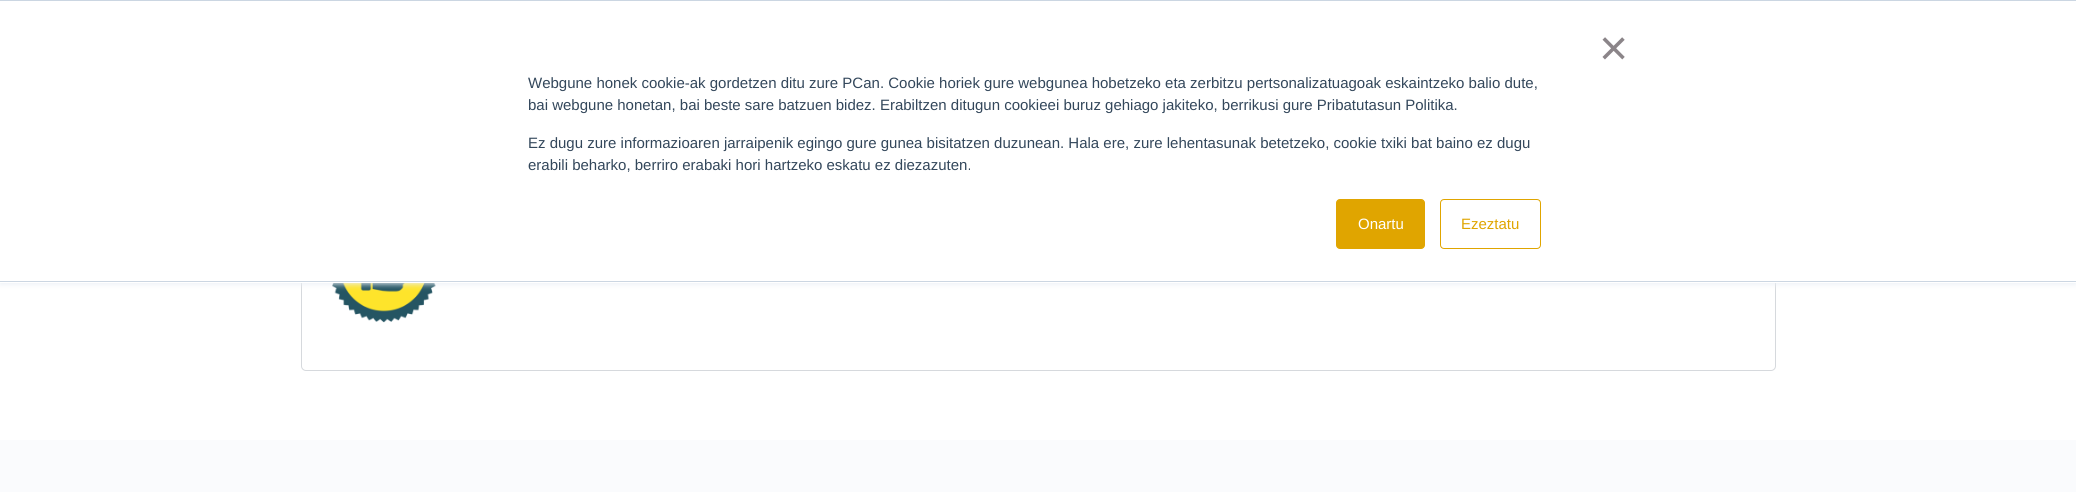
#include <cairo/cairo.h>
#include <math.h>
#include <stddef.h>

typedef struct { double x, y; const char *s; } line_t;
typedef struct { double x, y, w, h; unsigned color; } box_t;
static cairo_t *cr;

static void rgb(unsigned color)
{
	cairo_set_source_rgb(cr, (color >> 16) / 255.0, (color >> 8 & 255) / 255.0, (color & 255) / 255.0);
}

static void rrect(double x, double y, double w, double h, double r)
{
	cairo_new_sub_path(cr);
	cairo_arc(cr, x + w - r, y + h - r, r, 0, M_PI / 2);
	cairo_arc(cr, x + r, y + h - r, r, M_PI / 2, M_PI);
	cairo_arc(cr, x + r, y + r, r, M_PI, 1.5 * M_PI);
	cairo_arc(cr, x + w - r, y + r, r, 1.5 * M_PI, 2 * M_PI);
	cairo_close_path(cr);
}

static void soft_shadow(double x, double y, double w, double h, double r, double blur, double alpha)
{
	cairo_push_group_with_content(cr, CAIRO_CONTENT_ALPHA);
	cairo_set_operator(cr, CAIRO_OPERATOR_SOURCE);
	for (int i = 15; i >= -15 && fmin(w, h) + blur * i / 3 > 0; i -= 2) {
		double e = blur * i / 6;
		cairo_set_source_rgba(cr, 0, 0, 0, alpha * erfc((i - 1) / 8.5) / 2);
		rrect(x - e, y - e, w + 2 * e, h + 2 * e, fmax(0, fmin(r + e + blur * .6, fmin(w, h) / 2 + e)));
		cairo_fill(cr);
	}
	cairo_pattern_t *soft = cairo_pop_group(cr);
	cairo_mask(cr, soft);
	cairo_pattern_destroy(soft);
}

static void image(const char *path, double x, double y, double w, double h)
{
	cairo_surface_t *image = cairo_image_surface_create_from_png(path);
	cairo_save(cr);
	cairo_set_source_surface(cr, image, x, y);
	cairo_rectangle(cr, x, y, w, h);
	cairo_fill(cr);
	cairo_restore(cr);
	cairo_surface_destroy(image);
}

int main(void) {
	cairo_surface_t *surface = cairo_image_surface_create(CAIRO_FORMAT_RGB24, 2076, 492);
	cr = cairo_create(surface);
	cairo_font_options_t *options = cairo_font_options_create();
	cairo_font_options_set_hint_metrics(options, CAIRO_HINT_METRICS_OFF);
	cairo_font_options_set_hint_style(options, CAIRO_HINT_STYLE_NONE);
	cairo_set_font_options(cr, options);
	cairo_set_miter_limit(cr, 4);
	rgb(0xffffff);
	cairo_paint(cr);
	rrect(301.5, 113.5, 1474, 257, 4.5);
	rgb(0xd6d9dd);
	cairo_set_line_width(cr, 1);
	cairo_stroke(cr);
	image("img/1.png", 332, 283, 104, 40);
	rgb(0xeaf0f6);
	soft_shadow(0, 1, 2076, 283, 0, 3, 1);
	{
		static const box_t items[] = {
			{0, 1, 2076, 282, 0xffffff},
			{0, 0, 2076, 1, 0xcbd6e2},
			{0, 281, 2076, 1, 0xcbd6e2},
		};
		for (size_t i = 0; i < sizeof items / sizeof *items; i++) {
			rgb(items[i].color);
			cairo_rectangle(cr, items[i].x, items[i].y, items[i].w, items[i].h);
			cairo_fill(cr);
		}
	}
	rgb(0xe0a500);
	rrect(1336.5, 199.5, 88, 49, 3.5);
	cairo_fill_preserve(cr);
	cairo_stroke(cr);
	rrect(1440.5, 199.5, 100, 49, 3.5);
	cairo_stroke(cr);
	rgb(0xfafbfd);
	cairo_rectangle(cr, 0, 440, 2076, 52);
	cairo_fill(cr);
	cairo_select_font_face(cr, "Liberation Sans", CAIRO_FONT_SLANT_NORMAL, CAIRO_FONT_WEIGHT_NORMAL);
	cairo_set_font_size(cr, 50);
	rgb(0x8b8589);
	cairo_move_to(cr, 1599, 65);
	cairo_show_text(cr, "×");
	cairo_set_font_size(cr, 15);
	rgb(0x33475b);
	{
		static const line_t items[] = {
			{528, 88, "Webgune honek cookie-ak gordetzen ditu zure PCan. Cookie horiek gure webgunea hobetzeko eta zerbitzu pertsonalizatuagoak eskaintzeko balio dute,"},
			{528, 110, "bai webgune honetan, bai beste sare batzuen bidez. Erabiltzen ditugun cookieei buruz gehiago jakiteko, berrikusi gure Pribatutasun Politika."},
			{528, 148, "Ez dugu zure informazioaren jarraipenik egingo gure gunea bisitatzen duzunean. Hala ere, zure lehentasunak betetzeko, cookie txiki bat baino ez dugu"},
			{528, 170, "erabili beharko, berriro erabaki hori hartzeko eskatu ez diezazuten."},
		};
		for (size_t i = 0; i < sizeof items / sizeof *items; i++) {
			cairo_move_to(cr, items[i].x, items[i].y);
			cairo_show_text(cr, items[i].s);
		}
	}
	rgb(0xffffff);
	cairo_move_to(cr, 1358, 229);
	cairo_show_text(cr, "Onartu");
	rgb(0xe0a500);
	cairo_move_to(cr, 1461, 229);
	cairo_show_text(cr, "Ezeztatu");
	cairo_surface_write_to_png(surface, "page.png");
	cairo_font_options_destroy(options);
	cairo_destroy(cr);
	cairo_surface_destroy(surface);
	return 0;
}
